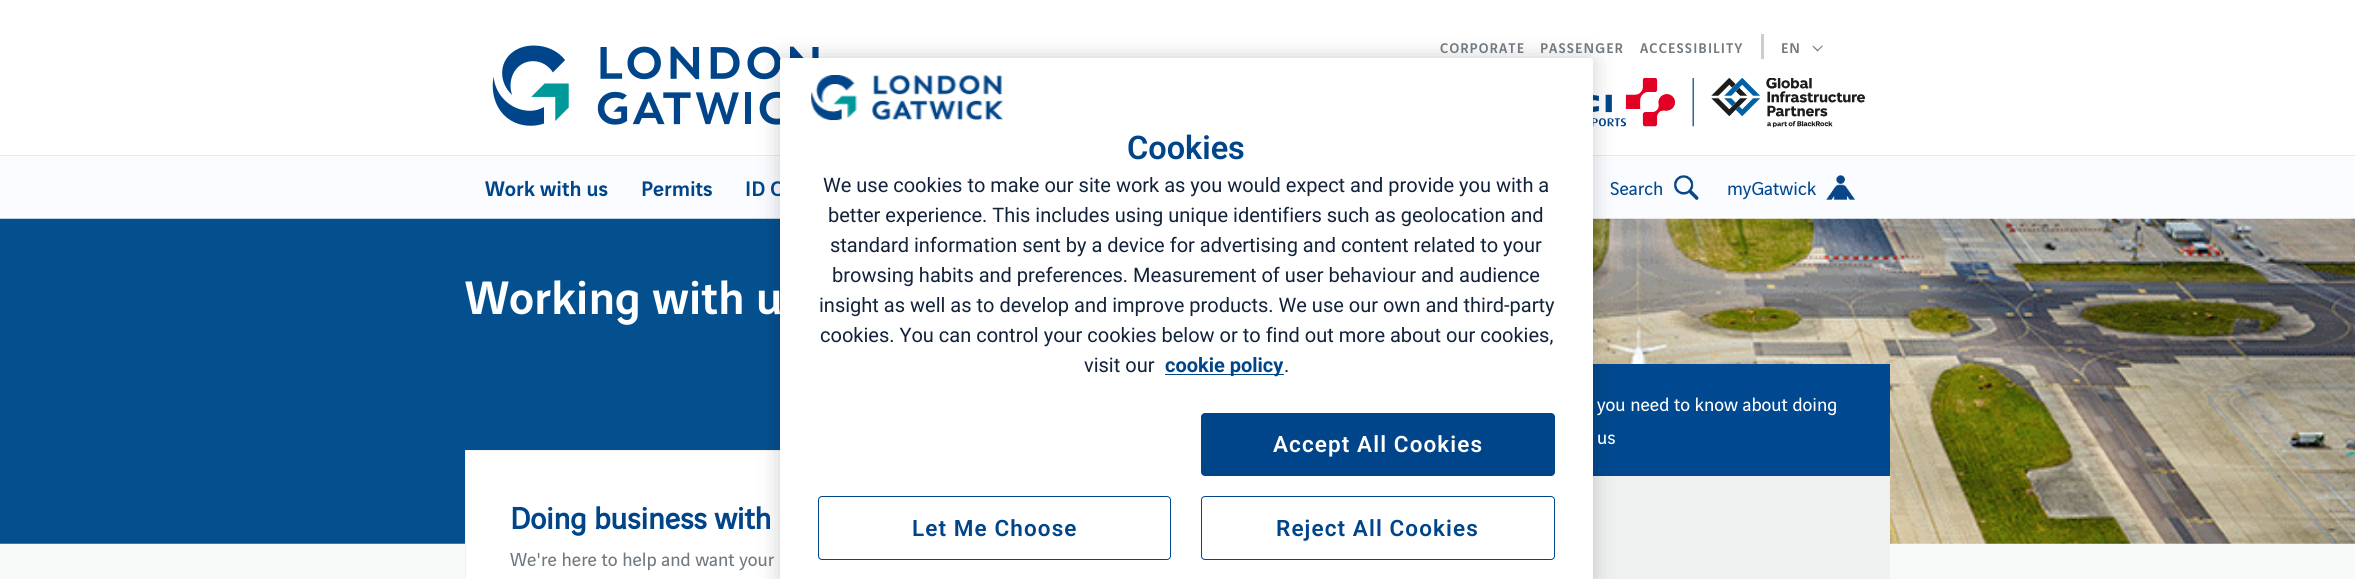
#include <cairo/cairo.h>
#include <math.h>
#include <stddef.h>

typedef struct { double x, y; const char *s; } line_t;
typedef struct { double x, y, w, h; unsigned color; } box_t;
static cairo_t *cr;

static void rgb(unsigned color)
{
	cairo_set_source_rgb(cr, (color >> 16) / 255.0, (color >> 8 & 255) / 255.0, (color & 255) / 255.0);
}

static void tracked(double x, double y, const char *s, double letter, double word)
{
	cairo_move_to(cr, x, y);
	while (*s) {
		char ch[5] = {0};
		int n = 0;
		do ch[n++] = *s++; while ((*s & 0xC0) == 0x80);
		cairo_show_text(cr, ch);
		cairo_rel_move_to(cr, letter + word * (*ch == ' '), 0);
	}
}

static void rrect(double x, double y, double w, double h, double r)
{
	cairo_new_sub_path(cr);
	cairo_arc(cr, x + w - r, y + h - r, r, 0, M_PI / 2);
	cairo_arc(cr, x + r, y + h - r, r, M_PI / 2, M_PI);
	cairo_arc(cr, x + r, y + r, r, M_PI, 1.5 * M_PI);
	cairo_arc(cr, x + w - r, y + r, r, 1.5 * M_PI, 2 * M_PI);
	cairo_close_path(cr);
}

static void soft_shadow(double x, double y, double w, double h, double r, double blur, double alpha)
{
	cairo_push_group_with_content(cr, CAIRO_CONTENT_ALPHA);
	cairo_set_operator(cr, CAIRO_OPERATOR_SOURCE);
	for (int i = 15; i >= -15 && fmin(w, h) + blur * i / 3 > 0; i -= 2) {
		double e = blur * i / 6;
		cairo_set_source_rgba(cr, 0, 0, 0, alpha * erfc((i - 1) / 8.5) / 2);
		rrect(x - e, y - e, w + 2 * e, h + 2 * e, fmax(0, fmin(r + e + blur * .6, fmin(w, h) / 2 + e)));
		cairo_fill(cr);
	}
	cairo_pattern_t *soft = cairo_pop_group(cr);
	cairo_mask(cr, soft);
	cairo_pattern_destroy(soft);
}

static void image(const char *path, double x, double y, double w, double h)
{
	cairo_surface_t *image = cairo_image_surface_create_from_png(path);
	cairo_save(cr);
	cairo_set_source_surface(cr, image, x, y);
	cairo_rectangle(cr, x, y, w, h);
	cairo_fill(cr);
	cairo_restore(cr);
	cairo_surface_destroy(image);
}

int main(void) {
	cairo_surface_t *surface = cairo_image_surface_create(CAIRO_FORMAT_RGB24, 2355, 579);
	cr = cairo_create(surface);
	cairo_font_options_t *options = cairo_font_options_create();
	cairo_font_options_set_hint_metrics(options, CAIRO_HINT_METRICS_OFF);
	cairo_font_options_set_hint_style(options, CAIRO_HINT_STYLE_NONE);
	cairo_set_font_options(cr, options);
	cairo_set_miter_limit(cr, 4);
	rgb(0xffffff);
	cairo_paint(cr);
	image("img/1.png", 492, 45, 327, 81);
	rgb(0xcccccc);
	cairo_rectangle(cr, 1761, 34, 3, 25);
	cairo_fill(cr);
	rgb(0x717980);
	cairo_new_path(cr);
	cairo_move_to(cr, 1823, 46);
	cairo_line_to(cr, 1817.5, 51.5);
	cairo_line_to(cr, 1817, 50.5);
	cairo_line_to(cr, 1822, 45.5);
	cairo_close_path(cr);
	cairo_fill(cr);
	cairo_new_path(cr);
	cairo_move_to(cr, 1818.5, 50.5);
	cairo_line_to(cr, 1817.5, 51.5);
	cairo_line_to(cr, 1812.5, 46.5);
	cairo_line_to(cr, 1813, 45.5);
	cairo_close_path(cr);
	cairo_fill(cr);
	image("img/2.png", 1593, 78, 272, 50);
	rgb(0xfafcff);
	cairo_rectangle(cr, 0, 156, 2355, 63);
	cairo_fill(cr);
	rgb(0xeaeaea);
	cairo_rectangle(cr, 0, 155, 2355, 1);
	cairo_fill(cr);
	image("img/3.png", 1674, 175, 25, 25);
	image("img/4.png", 1826, 175, 29, 25);
	rgb(0xf8fafa);
	cairo_rectangle(cr, 0, 543, 2355, 36);
	cairo_fill(cr);
	image("img/5.png", 0, 218, 2355, 326);
	{
		static const box_t items[] = {
			{1593, 364, 297, 112, 0x004990},
			{466, 451, 314, 128, 0xffffff},
			{1593, 476, 297, 103, 0xeff1f1},
		};
		for (size_t i = 0; i < sizeof items / sizeof *items; i++) {
			rgb(items[i].color);
			cairo_rectangle(cr, items[i].x, items[i].y, items[i].w, items[i].h);
			cairo_fill(cr);
		}
	}
	cairo_rectangle(cr, 465.5, 450.5, 994, 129);
	rgb(0xf1f1f1);
	cairo_set_line_width(cr, 1);
	cairo_stroke(cr);
	rgb(0x000000);
	soft_shadow(780, 58, 813, 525, 3, 11, 0.2);
	cairo_select_font_face(cr, "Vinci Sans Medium", CAIRO_FONT_SLANT_NORMAL, CAIRO_FONT_WEIGHT_NORMAL);
	cairo_set_font_size(cr, 15);
	rgb(0x717980);
	{
		static const line_t items[] = {
			{1440, 53, "CORPORATE"},
			{1540, 53, "PASSENGER"},
			{1640, 53, "ACCESSIBILITY"},
			{1781, 53, "EN"},
		};
		for (size_t i = 0; i < sizeof items / sizeof *items; i++) {
			tracked(items[i].x, items[i].y, items[i].s, 1.1, 0);
		}
	}
	cairo_set_font_size(cr, 22.5);
	rgb(0x004489);
	{
		static const line_t items[] = {
			{485, 196, "Work with us"},
			{641, 196, "Permits"},
			{745, 196, "ID C"},
		};
		for (size_t i = 0; i < sizeof items / sizeof *items; i++) {
			cairo_move_to(cr, items[i].x, items[i].y);
			cairo_show_text(cr, items[i].s);
		}
	}
	cairo_select_font_face(cr, "Vinci Sans", CAIRO_FONT_SLANT_NORMAL, CAIRO_FONT_WEIGHT_NORMAL);
	cairo_set_font_size(cr, 20);
	rgb(0x004990);
	cairo_move_to(cr, 1610, 195);
	cairo_show_text(cr, "Search");
	cairo_move_to(cr, 1727, 195);
	cairo_show_text(cr, "myGatwick");
	cairo_select_font_face(cr, "Vinci Sans Medium", CAIRO_FONT_SLANT_NORMAL, CAIRO_FONT_WEIGHT_NORMAL);
	cairo_set_font_size(cr, 50);
	rgb(0xffffff);
	cairo_move_to(cr, 465, 314);
	cairo_show_text(cr, "Working with u");
	cairo_select_font_face(cr, "Vinci Sans", CAIRO_FONT_SLANT_NORMAL, CAIRO_FONT_WEIGHT_NORMAL);
	cairo_set_font_size(cr, 20);
	cairo_move_to(cr, 1597, 411);
	cairo_show_text(cr, "you need to know about doing");
	cairo_move_to(cr, 1597, 444);
	cairo_show_text(cr, "us");
	cairo_select_font_face(cr, "Vinci Sans", CAIRO_FONT_SLANT_NORMAL, CAIRO_FONT_WEIGHT_BOLD);
	cairo_set_font_size(cr, 32.5);
	rgb(0x004489);
	cairo_move_to(cr, 510, 529);
	cairo_show_text(cr, "Doing business with");
	cairo_select_font_face(cr, "Vinci Sans", CAIRO_FONT_SLANT_NORMAL, CAIRO_FONT_WEIGHT_NORMAL);
	cairo_set_font_size(cr, 20);
	rgb(0x717980);
	cairo_move_to(cr, 510, 566);
	cairo_show_text(cr, "We're here to help and want your");
	rgb(0xffffff);
	rrect(780, 58, 813, 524, 3);
	cairo_fill(cr);
	image("img/6.png", 811, 75, 192, 46);
	cairo_select_font_face(cr, "Roboto SemiBold", CAIRO_FONT_SLANT_NORMAL, CAIRO_FONT_WEIGHT_NORMAL);
	cairo_set_font_size(cr, 32.5);
	rgb(0x004489);
	cairo_move_to(cr, 1127, 159);
	cairo_show_text(cr, "Cookies");
	cairo_select_font_face(cr, "Roboto", CAIRO_FONT_SLANT_NORMAL, CAIRO_FONT_WEIGHT_NORMAL);
	cairo_set_font_size(cr, 20);
	rgb(0x11223a);
	{
		static const line_t items[] = {
			{823, 192, "We use cookies to make our site work as you would expect and provide you with a"},
			{828, 222, "better experience. This includes using unique identifiers such as geolocation and"},
			{830, 252, "standard information sent by a device for advertising and content related to your"},
			{832, 282, "browsing habits and preferences. Measurement of user behaviour and audience"},
			{819, 312, "insight as well as to develop and improve products. We use our own and third-party"},
			{820, 342, "cookies. You can control your cookies below or to find out more about our cookies,"},
			{1084, 372, "visit our"},
		};
		for (size_t i = 0; i < sizeof items / sizeof *items; i++) {
			cairo_move_to(cr, items[i].x, items[i].y);
			cairo_show_text(cr, items[i].s);
		}
	}
	rgb(0x004489);
	cairo_rectangle(cr, 1165, 374, 119, 1);
	cairo_fill(cr);
	cairo_select_font_face(cr, "Roboto", CAIRO_FONT_SLANT_NORMAL, CAIRO_FONT_WEIGHT_BOLD);
	cairo_move_to(cr, 1165, 372);
	cairo_show_text(cr, "cookie policy");
	cairo_select_font_face(cr, "Roboto", CAIRO_FONT_SLANT_NORMAL, CAIRO_FONT_WEIGHT_NORMAL);
	rgb(0x11223a);
	cairo_move_to(cr, 1284, 372);
	cairo_show_text(cr, ".");
	rrect(818.5, 496.5, 352, 63, 3.5);
	rgb(0x004489);
	cairo_stroke(cr);
	cairo_select_font_face(cr, "Roboto SemiBold", CAIRO_FONT_SLANT_NORMAL, CAIRO_FONT_WEIGHT_NORMAL);
	cairo_set_font_size(cr, 22.5);
	tracked(912, 536, "Let Me Choose", 1.1, 0);
	rrect(1201.5, 413.5, 353, 62, 3.5);
	cairo_fill_preserve(cr);
	cairo_stroke(cr);
	rgb(0xffffff);
	tracked(1273, 452, "Accept All Cookies", 1.1, 0);
	rrect(1201.5, 496.5, 353, 63, 3.5);
	rgb(0x004489);
	cairo_stroke(cr);
	tracked(1276, 536, "Reject All Cookies", 1.1, 0);
	cairo_surface_write_to_png(surface, "page.png");
	cairo_font_options_destroy(options);
	cairo_destroy(cr);
	cairo_surface_destroy(surface);
	return 0;
}
